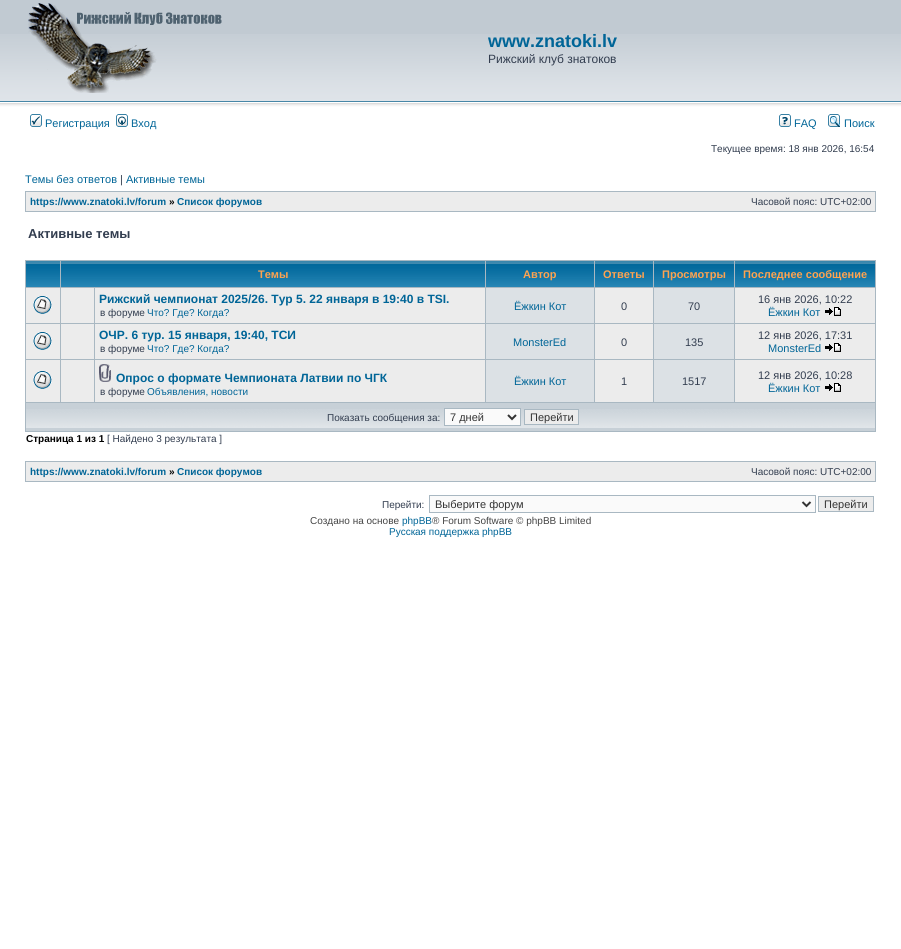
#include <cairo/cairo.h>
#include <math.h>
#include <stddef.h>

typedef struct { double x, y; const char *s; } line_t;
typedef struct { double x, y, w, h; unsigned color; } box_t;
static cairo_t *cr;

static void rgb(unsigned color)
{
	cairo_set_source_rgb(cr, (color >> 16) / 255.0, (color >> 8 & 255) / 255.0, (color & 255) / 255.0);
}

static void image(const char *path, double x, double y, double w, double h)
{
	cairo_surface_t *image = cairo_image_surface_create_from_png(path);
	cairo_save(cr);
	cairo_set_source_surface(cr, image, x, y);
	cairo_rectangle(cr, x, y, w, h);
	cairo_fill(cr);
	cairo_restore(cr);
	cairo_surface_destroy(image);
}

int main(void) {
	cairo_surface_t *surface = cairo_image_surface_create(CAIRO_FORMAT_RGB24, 901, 949);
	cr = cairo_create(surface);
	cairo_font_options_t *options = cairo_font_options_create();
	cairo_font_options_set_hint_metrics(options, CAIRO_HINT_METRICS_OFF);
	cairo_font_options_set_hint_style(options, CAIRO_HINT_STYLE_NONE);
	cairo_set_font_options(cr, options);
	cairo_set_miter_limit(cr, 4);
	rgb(0xffffff);
	cairo_paint(cr);
	rgb(0xc1cad2);
	cairo_rectangle(cr, 0, 0, 901, 34);
	cairo_fill(cr);
	image("img/1.png", 0, 34, 901, 78);
	image("img/2.png", 28, 3, 194, 90);
	image("img/3.png", 30, 114, 12, 13);
	image("img/4.png", 116, 114, 12, 13);
	image("img/5.png", 779, 114, 12, 13);
	image("img/6.png", 828, 114, 12, 13);
	{
		static const box_t items[] = {
			{25, 191, 851, 21, 0xa9b8c2},
			{26, 192, 849, 19, 0xececec},
			{25, 260, 851, 172, 0xa9b8c2},
		};
		for (size_t i = 0; i < sizeof items / sizeof *items; i++) {
			rgb(items[i].color);
			cairo_rectangle(cr, items[i].x, items[i].y, items[i].w, items[i].h);
			cairo_fill(cr);
		}
	}
	image("img/7.png", 26, 261, 34, 26);
	image("img/8.png", 61, 261, 424, 26);
	image("img/9.png", 486, 261, 108, 26);
	image("img/10.png", 595, 261, 58, 26);
	image("img/11.png", 654, 261, 80, 26);
	image("img/12.png", 735, 261, 140, 26);
	rgb(0xececec);
	cairo_rectangle(cr, 26, 288, 34, 35);
	cairo_fill(cr);
	image("img/13.png", 33, 296, 19, 18);
	{
		static const box_t items[] = {
			{61, 288, 33, 35, 0xececec},
			{95, 288, 390, 35, 0xececec},
			{486, 288, 108, 35, 0xdce1e5},
			{595, 288, 58, 35, 0xececec},
			{654, 288, 80, 35, 0xdce1e5},
			{735, 288, 140, 35, 0xececec},
		};
		for (size_t i = 0; i < sizeof items / sizeof *items; i++) {
			rgb(items[i].color);
			cairo_rectangle(cr, items[i].x, items[i].y, items[i].w, items[i].h);
			cairo_fill(cr);
		}
	}
	image("img/14.png", 825, 307, 16, 9);
	cairo_rectangle(cr, 26, 324, 34, 35);
	cairo_fill(cr);
	image("img/13.png", 33, 332, 19, 18);
	{
		static const box_t items[] = {
			{61, 324, 33, 35, 0xececec},
			{95, 324, 390, 35, 0xececec},
			{486, 324, 108, 35, 0xdce1e5},
			{595, 324, 58, 35, 0xececec},
			{654, 324, 80, 35, 0xdce1e5},
			{735, 324, 140, 35, 0xececec},
		};
		for (size_t i = 0; i < sizeof items / sizeof *items; i++) {
			rgb(items[i].color);
			cairo_rectangle(cr, items[i].x, items[i].y, items[i].w, items[i].h);
			cairo_fill(cr);
		}
	}
	image("img/14.png", 825, 343, 16, 9);
	cairo_rectangle(cr, 26, 360, 34, 42);
	cairo_fill(cr);
	image("img/13.png", 33, 371, 19, 18);
	cairo_rectangle(cr, 61, 360, 33, 42);
	cairo_fill(cr);
	cairo_rectangle(cr, 95, 360, 390, 42);
	cairo_fill(cr);
	image("img/15.png", 99, 364, 12, 18);
	{
		static const box_t items[] = {
			{486, 360, 108, 42, 0xdce1e5},
			{595, 360, 58, 42, 0xececec},
			{654, 360, 80, 42, 0xdce1e5},
			{735, 360, 140, 42, 0xececec},
		};
		for (size_t i = 0; i < sizeof items / sizeof *items; i++) {
			rgb(items[i].color);
			cairo_rectangle(cr, items[i].x, items[i].y, items[i].w, items[i].h);
			cairo_fill(cr);
		}
	}
	image("img/14.png", 825, 383, 16, 9);
	rgb(0xc7d0d7);
	cairo_rectangle(cr, 26, 403, 849, 28);
	cairo_fill(cr);
	image("img/16.png", 26, 409, 849, 19);
	rgb(0xfafafa);
	cairo_rectangle(cr, 444.5, 408.5, 76, 17);
	cairo_fill_preserve(cr);
	rgb(0xa9b8c2);
	cairo_set_line_width(cr, 1);
	cairo_stroke(cr);
	cairo_new_path(cr);
	cairo_move_to(cr, 508, 415);
	cairo_line_to(cr, 512, 419);
	cairo_line_to(cr, 516, 415);
	rgb(0x333333);
	cairo_set_line_width(cr, 2);
	cairo_stroke(cr);
	rgb(0xececec);
	cairo_rectangle(cr, 524.5, 409.5, 54, 15);
	cairo_fill_preserve(cr);
	rgb(0xa9b8c2);
	cairo_set_line_width(cr, 1);
	cairo_stroke(cr);
	cairo_rectangle(cr, 25, 461, 851, 21);
	cairo_fill(cr);
	rgb(0xececec);
	cairo_rectangle(cr, 26, 462, 849, 19);
	cairo_fill(cr);
	rgb(0xfafafa);
	cairo_rectangle(cr, 429.5, 495.5, 386, 17);
	cairo_fill_preserve(cr);
	rgb(0xa9b8c2);
	cairo_stroke(cr);
	cairo_new_path(cr);
	cairo_move_to(cr, 802.5, 502);
	cairo_line_to(cr, 806.5, 506);
	cairo_line_to(cr, 810.5, 502);
	rgb(0x333333);
	cairo_set_line_width(cr, 2);
	cairo_stroke(cr);
	rgb(0xececec);
	cairo_rectangle(cr, 818.5, 496.5, 55, 15);
	cairo_fill_preserve(cr);
	rgb(0xa9b8c2);
	cairo_set_line_width(cr, 1);
	cairo_stroke(cr);
	cairo_select_font_face(cr, "Liberation Sans", CAIRO_FONT_SLANT_NORMAL, CAIRO_FONT_WEIGHT_BOLD);
	cairo_set_font_size(cr, 18);
	rgb(0x006597);
	cairo_move_to(cr, 488, 47);
	cairo_show_text(cr, "www.znatoki.lv");
	cairo_select_font_face(cr, "Liberation Sans", CAIRO_FONT_SLANT_NORMAL, CAIRO_FONT_WEIGHT_NORMAL);
	cairo_set_font_size(cr, 12);
	rgb(0x323d4f);
	cairo_move_to(cr, 488, 63);
	cairo_show_text(cr, "Рижский клуб знатоков");
	cairo_set_font_size(cr, 11);
	rgb(0x006597);
	{
		static const line_t items[] = {
			{45, 127, "Регистрация"},
			{131, 127, "Вход"},
			{794, 127, "FAQ"},
			{844, 127, "Поиск"},
		};
		for (size_t i = 0; i < sizeof items / sizeof *items; i++) {
			cairo_move_to(cr, items[i].x, items[i].y);
			cairo_show_text(cr, items[i].s);
		}
	}
	cairo_set_font_size(cr, 10);
	rgb(0x323d4f);
	cairo_move_to(cr, 711, 152);
	cairo_show_text(cr, "Текущее время: 18 янв 2026, 16:54");
	cairo_set_font_size(cr, 11);
	rgb(0x006597);
	cairo_move_to(cr, 25, 183);
	cairo_show_text(cr, "Темы без ответов");
	rgb(0x323d4f);
	cairo_move_to(cr, 120, 183);
	cairo_show_text(cr, "|");
	rgb(0x006597);
	cairo_move_to(cr, 126, 183);
	cairo_show_text(cr, "Активные темы");
	cairo_select_font_face(cr, "Liberation Sans", CAIRO_FONT_SLANT_NORMAL, CAIRO_FONT_WEIGHT_BOLD);
	cairo_set_font_size(cr, 10);
	cairo_move_to(cr, 30, 205);
	cairo_show_text(cr, "https://www.znatoki.lv/forum");
	rgb(0x000000);
	cairo_move_to(cr, 169, 205);
	cairo_show_text(cr, "»");
	rgb(0x006597);
	cairo_move_to(cr, 177, 205);
	cairo_show_text(cr, "Список форумов");
	cairo_select_font_face(cr, "Liberation Sans", CAIRO_FONT_SLANT_NORMAL, CAIRO_FONT_WEIGHT_NORMAL);
	rgb(0x323d4f);
	cairo_move_to(cr, 751, 205);
	cairo_show_text(cr, "Часовой пояс: UTC+02:00");
	cairo_select_font_face(cr, "Liberation Sans", CAIRO_FONT_SLANT_NORMAL, CAIRO_FONT_WEIGHT_BOLD);
	cairo_set_font_size(cr, 13);
	cairo_move_to(cr, 28, 238);
	cairo_show_text(cr, "Активные темы");
	cairo_set_font_size(cr, 11);
	rgb(0xffa34f);
	{
		static const line_t items[] = {
			{258, 278, "Темы"},
			{523, 278, "Автор"},
			{603, 278, "Ответы"},
			{662, 278, "Просмотры"},
			{743, 278, "Последнее сообщение"},
		};
		for (size_t i = 0; i < sizeof items / sizeof *items; i++) {
			cairo_move_to(cr, items[i].x, items[i].y);
			cairo_show_text(cr, items[i].s);
		}
	}
	cairo_set_font_size(cr, 12);
	rgb(0x006597);
	cairo_move_to(cr, 99, 303);
	cairo_show_text(cr, "Рижский чемпионат 2025/26. Тур 5. 22 января в 19:40 в TSI.");
	cairo_select_font_face(cr, "Liberation Sans", CAIRO_FONT_SLANT_NORMAL, CAIRO_FONT_WEIGHT_NORMAL);
	cairo_set_font_size(cr, 10);
	rgb(0x323d4f);
	cairo_move_to(cr, 100, 316);
	cairo_show_text(cr, "в форуме");
	rgb(0x006597);
	cairo_move_to(cr, 147, 316);
	cairo_show_text(cr, "Что? Где? Когда?");
	cairo_set_font_size(cr, 11);
	cairo_move_to(cr, 514, 310);
	cairo_show_text(cr, "Ёжкин Кот");
	rgb(0x323d4f);
	{
		static const line_t items[] = {
			{621, 310, "0"},
			{688, 310, "70"},
			{758, 303, "16 янв 2026, 10:22"},
		};
		for (size_t i = 0; i < sizeof items / sizeof *items; i++) {
			cairo_move_to(cr, items[i].x, items[i].y);
			cairo_show_text(cr, items[i].s);
		}
	}
	rgb(0x006597);
	cairo_move_to(cr, 768, 316);
	cairo_show_text(cr, "Ёжкин Кот");
	cairo_select_font_face(cr, "Liberation Sans", CAIRO_FONT_SLANT_NORMAL, CAIRO_FONT_WEIGHT_BOLD);
	cairo_set_font_size(cr, 12);
	cairo_move_to(cr, 99, 339);
	cairo_show_text(cr, "ОЧР. 6 тур. 15 января, 19:40, ТСИ");
	cairo_select_font_face(cr, "Liberation Sans", CAIRO_FONT_SLANT_NORMAL, CAIRO_FONT_WEIGHT_NORMAL);
	cairo_set_font_size(cr, 10);
	rgb(0x323d4f);
	cairo_move_to(cr, 100, 352);
	cairo_show_text(cr, "в форуме");
	rgb(0x006597);
	cairo_move_to(cr, 147, 352);
	cairo_show_text(cr, "Что? Где? Когда?");
	cairo_set_font_size(cr, 11);
	cairo_move_to(cr, 513, 346);
	cairo_show_text(cr, "MonsterEd");
	rgb(0x323d4f);
	{
		static const line_t items[] = {
			{621, 346, "0"},
			{685, 346, "135"},
			{758, 339, "12 янв 2026, 17:31"},
		};
		for (size_t i = 0; i < sizeof items / sizeof *items; i++) {
			cairo_move_to(cr, items[i].x, items[i].y);
			cairo_show_text(cr, items[i].s);
		}
	}
	rgb(0x006597);
	cairo_move_to(cr, 768, 352);
	cairo_show_text(cr, "MonsterEd");
	cairo_select_font_face(cr, "Liberation Sans", CAIRO_FONT_SLANT_NORMAL, CAIRO_FONT_WEIGHT_BOLD);
	cairo_set_font_size(cr, 12);
	cairo_move_to(cr, 116, 382);
	cairo_show_text(cr, "Опрос о формате Чемпионата Латвии по ЧГК");
	cairo_select_font_face(cr, "Liberation Sans", CAIRO_FONT_SLANT_NORMAL, CAIRO_FONT_WEIGHT_NORMAL);
	cairo_set_font_size(cr, 10);
	rgb(0x323d4f);
	cairo_move_to(cr, 100, 395);
	cairo_show_text(cr, "в форуме");
	rgb(0x006597);
	cairo_move_to(cr, 147, 395);
	cairo_show_text(cr, "Объявления, новости");
	cairo_set_font_size(cr, 11);
	cairo_move_to(cr, 514, 385);
	cairo_show_text(cr, "Ёжкин Кот");
	rgb(0x323d4f);
	{
		static const line_t items[] = {
			{621, 385, "1"},
			{682, 385, "1517"},
			{758, 379, "12 янв 2026, 10:28"},
		};
		for (size_t i = 0; i < sizeof items / sizeof *items; i++) {
			cairo_move_to(cr, items[i].x, items[i].y);
			cairo_show_text(cr, items[i].s);
		}
	}
	rgb(0x006597);
	cairo_move_to(cr, 768, 392);
	cairo_show_text(cr, "Ёжкин Кот");
	cairo_set_font_size(cr, 10);
	rgb(0x323d4f);
	cairo_move_to(cr, 327, 421);
	cairo_show_text(cr, "Показать сообщения за:");
	cairo_set_font_size(cr, 11);
	rgb(0x333333);
	cairo_move_to(cr, 450, 421);
	cairo_show_text(cr, "7 дней");
	cairo_move_to(cr, 530, 421);
	cairo_show_text(cr, "Перейти");
	cairo_select_font_face(cr, "Liberation Sans", CAIRO_FONT_SLANT_NORMAL, CAIRO_FONT_WEIGHT_BOLD);
	cairo_set_font_size(cr, 10);
	rgb(0x000000);
	cairo_move_to(cr, 26, 442);
	cairo_show_text(cr, "Страница 1 из 1");
	cairo_select_font_face(cr, "Liberation Sans", CAIRO_FONT_SLANT_NORMAL, CAIRO_FONT_WEIGHT_NORMAL);
	rgb(0x323d4f);
	cairo_move_to(cr, 107, 442);
	cairo_show_text(cr, "[ Найдено 3 результата ]");
	cairo_select_font_face(cr, "Liberation Sans", CAIRO_FONT_SLANT_NORMAL, CAIRO_FONT_WEIGHT_BOLD);
	rgb(0x006597);
	cairo_move_to(cr, 30, 475);
	cairo_show_text(cr, "https://www.znatoki.lv/forum");
	rgb(0x000000);
	cairo_move_to(cr, 169, 475);
	cairo_show_text(cr, "»");
	rgb(0x006597);
	cairo_move_to(cr, 177, 475);
	cairo_show_text(cr, "Список форумов");
	cairo_select_font_face(cr, "Liberation Sans", CAIRO_FONT_SLANT_NORMAL, CAIRO_FONT_WEIGHT_NORMAL);
	rgb(0x323d4f);
	cairo_move_to(cr, 751, 475);
	cairo_show_text(cr, "Часовой пояс: UTC+02:00");
	cairo_move_to(cr, 382, 508);
	cairo_show_text(cr, "Перейти:");
	cairo_set_font_size(cr, 11);
	rgb(0x333333);
	cairo_move_to(cr, 435, 508);
	cairo_show_text(cr, "Выберите форум");
	cairo_move_to(cr, 824, 508);
	cairo_show_text(cr, "Перейти");
	cairo_set_font_size(cr, 10);
	rgb(0x444444);
	cairo_move_to(cr, 310, 524);
	cairo_show_text(cr, "Создано на основе");
	rgb(0x006597);
	cairo_move_to(cr, 402, 524);
	cairo_show_text(cr, "phpBB");
	rgb(0x444444);
	cairo_move_to(cr, 432, 524);
	cairo_show_text(cr, "® Forum Software © phpBB Limited");
	rgb(0x006597);
	cairo_move_to(cr, 389, 535);
	cairo_show_text(cr, "Русская поддержка phpBB");
	cairo_surface_write_to_png(surface, "page.png");
	cairo_font_options_destroy(options);
	cairo_destroy(cr);
	cairo_surface_destroy(surface);
	return 0;
}
